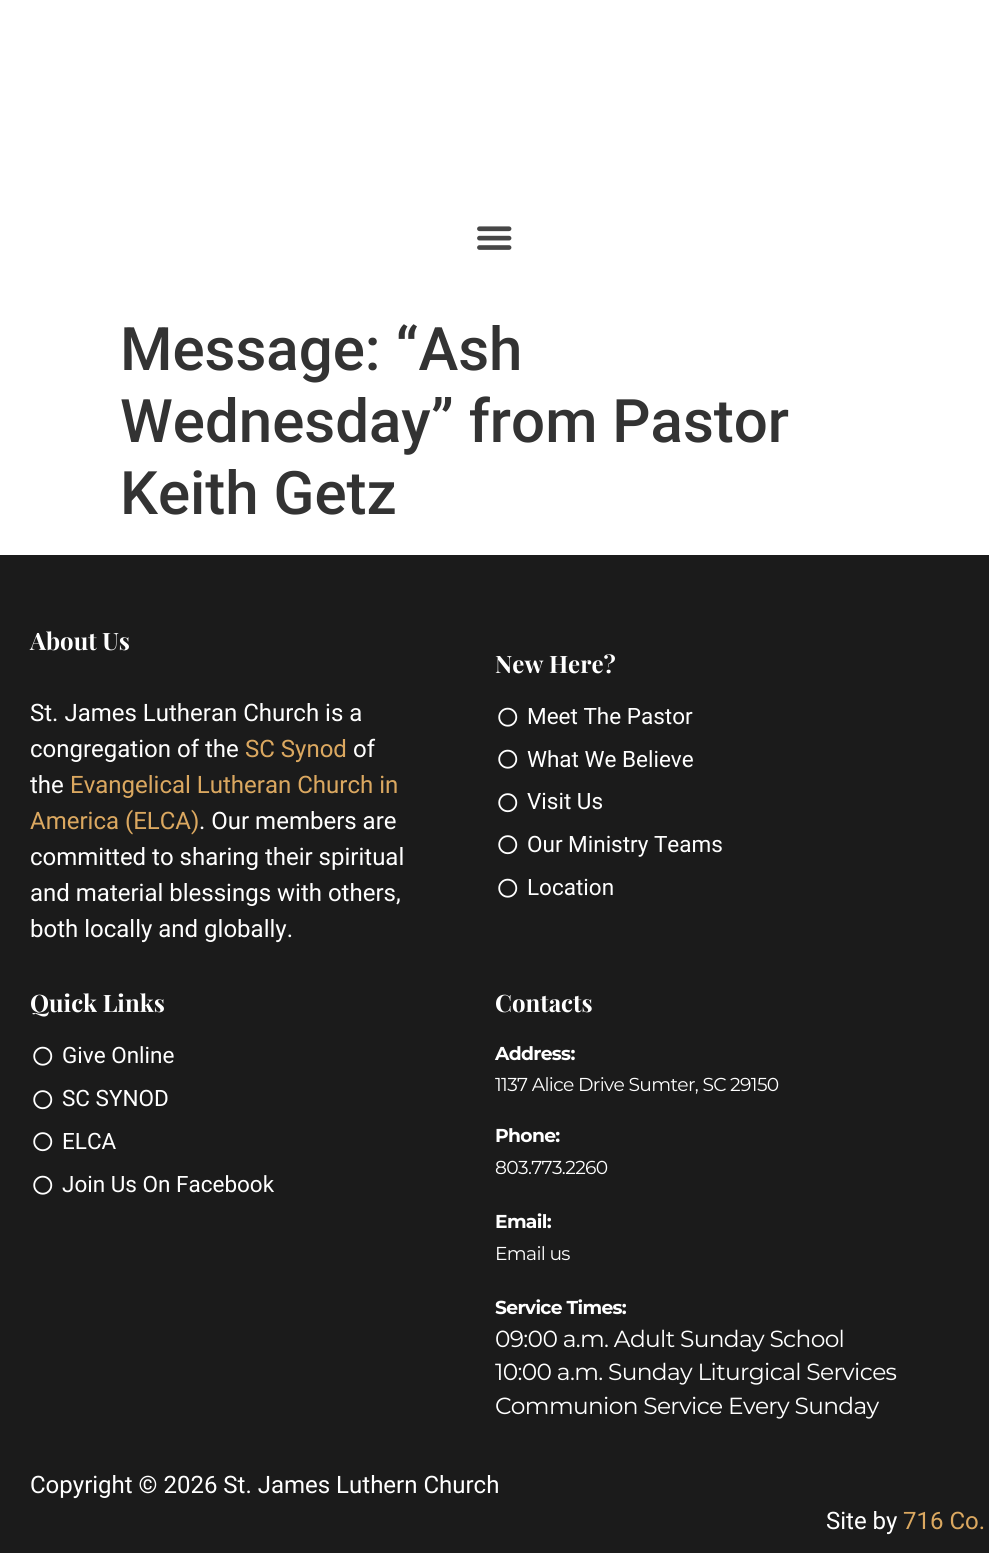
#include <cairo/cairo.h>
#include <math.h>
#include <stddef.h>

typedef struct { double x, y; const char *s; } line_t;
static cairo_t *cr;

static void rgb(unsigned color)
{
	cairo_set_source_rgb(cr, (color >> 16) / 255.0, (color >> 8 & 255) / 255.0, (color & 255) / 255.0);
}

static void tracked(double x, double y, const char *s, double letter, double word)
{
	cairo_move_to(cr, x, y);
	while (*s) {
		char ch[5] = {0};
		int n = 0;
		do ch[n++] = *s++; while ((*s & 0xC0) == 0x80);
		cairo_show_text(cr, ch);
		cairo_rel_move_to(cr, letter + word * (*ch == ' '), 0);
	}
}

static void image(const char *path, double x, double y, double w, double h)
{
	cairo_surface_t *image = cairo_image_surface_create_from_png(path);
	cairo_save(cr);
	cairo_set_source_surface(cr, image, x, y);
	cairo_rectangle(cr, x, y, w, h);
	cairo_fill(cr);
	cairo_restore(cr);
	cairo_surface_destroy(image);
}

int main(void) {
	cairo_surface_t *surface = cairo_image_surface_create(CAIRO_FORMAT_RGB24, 989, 1553);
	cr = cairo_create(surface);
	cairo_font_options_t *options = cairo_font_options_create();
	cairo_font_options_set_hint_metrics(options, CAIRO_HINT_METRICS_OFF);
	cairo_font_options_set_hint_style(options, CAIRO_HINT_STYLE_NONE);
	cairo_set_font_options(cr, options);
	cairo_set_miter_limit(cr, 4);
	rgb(0xffffff);
	cairo_paint(cr);
	image("img/1.png", 477, 226, 35, 24);
	rgb(0x1b1b1b);
	cairo_rectangle(cr, 0, 555, 989, 998);
	cairo_fill(cr);
	image("img/2.png", 498, 707, 20, 20);
	image("img/2.png", 498, 749, 20, 20);
	image("img/3.png", 498, 793, 20, 20);
	image("img/3.png", 498, 835, 20, 20);
	image("img/2.png", 498, 878, 20, 20);
	image("img/2.png", 33, 1046, 20, 20);
	image("img/3.png", 33, 1090, 20, 20);
	image("img/3.png", 33, 1132, 20, 20);
	image("img/2.png", 33, 1175, 20, 20);
	cairo_select_font_face(cr, "Roboto Medium", CAIRO_FONT_SLANT_NORMAL, CAIRO_FONT_WEIGHT_NORMAL);
	cairo_set_font_size(cr, 60);
	rgb(0x333333);
	{
		static const line_t items[] = {
			{120, 370, "Message: “Ash"},
			{120, 442, "Wednesday” from Pastor"},
			{120, 514, "Keith Getz"},
		};
		for (size_t i = 0; i < sizeof items / sizeof *items; i++) {
			cairo_move_to(cr, items[i].x, items[i].y);
			cairo_show_text(cr, items[i].s);
		}
	}
	cairo_select_font_face(cr, "Playfair Display", CAIRO_FONT_SLANT_NORMAL, CAIRO_FONT_WEIGHT_BOLD);
	cairo_set_font_size(cr, 24);
	rgb(0xffffff);
	cairo_move_to(cr, 30, 650);
	cairo_show_text(cr, "About Us");
	cairo_select_font_face(cr, "Roboto", CAIRO_FONT_SLANT_NORMAL, CAIRO_FONT_WEIGHT_NORMAL);
	cairo_move_to(cr, 30, 721);
	cairo_show_text(cr, "St. James Lutheran Church is a");
	cairo_move_to(cr, 30, 757);
	cairo_show_text(cr, "congregation of the");
	rgb(0xdba860);
	cairo_move_to(cr, 245, 757);
	cairo_show_text(cr, "SC Synod");
	rgb(0xffffff);
	cairo_move_to(cr, 353, 757);
	cairo_show_text(cr, "of");
	cairo_move_to(cr, 30, 793);
	cairo_show_text(cr, "the");
	rgb(0xdba860);
	cairo_move_to(cr, 70, 793);
	cairo_show_text(cr, "Evangelical Lutheran Church in");
	cairo_move_to(cr, 30, 829);
	cairo_show_text(cr, "America (ELCA)");
	rgb(0xffffff);
	{
		static const line_t items[] = {
			{199, 829, ". Our members are"},
			{30, 865, "committed to sharing their spiritual"},
			{30, 901, "and material blessings with others,"},
			{30, 937, "both locally and globally."},
		};
		for (size_t i = 0; i < sizeof items / sizeof *items; i++) {
			cairo_move_to(cr, items[i].x, items[i].y);
			cairo_show_text(cr, items[i].s);
		}
	}
	cairo_select_font_face(cr, "Playfair Display", CAIRO_FONT_SLANT_NORMAL, CAIRO_FONT_WEIGHT_BOLD);
	cairo_move_to(cr, 495, 673);
	cairo_show_text(cr, "New Here?");
	cairo_select_font_face(cr, "Roboto", CAIRO_FONT_SLANT_NORMAL, CAIRO_FONT_WEIGHT_NORMAL);
	cairo_set_font_size(cr, 22.5);
	{
		static const line_t items[] = {
			{527, 724, "Meet The Pastor"},
			{527, 767, "What We Believe"},
			{527, 809, "Visit Us"},
			{527, 852, "Our Ministry Teams"},
			{527, 895, "Location"},
		};
		for (size_t i = 0; i < sizeof items / sizeof *items; i++) {
			cairo_move_to(cr, items[i].x, items[i].y);
			cairo_show_text(cr, items[i].s);
		}
	}
	cairo_select_font_face(cr, "Playfair Display", CAIRO_FONT_SLANT_NORMAL, CAIRO_FONT_WEIGHT_BOLD);
	cairo_set_font_size(cr, 24);
	cairo_move_to(cr, 30, 1012);
	cairo_show_text(cr, "Quick Links");
	cairo_select_font_face(cr, "Roboto", CAIRO_FONT_SLANT_NORMAL, CAIRO_FONT_WEIGHT_NORMAL);
	cairo_set_font_size(cr, 22.5);
	{
		static const line_t items[] = {
			{62, 1063, "Give Online"},
			{62, 1106, "SC SYNOD"},
			{62, 1149, "ELCA"},
			{62, 1192, "Join Us On Facebook"},
		};
		for (size_t i = 0; i < sizeof items / sizeof *items; i++) {
			cairo_move_to(cr, items[i].x, items[i].y);
			cairo_show_text(cr, items[i].s);
		}
	}
	cairo_select_font_face(cr, "Playfair Display", CAIRO_FONT_SLANT_NORMAL, CAIRO_FONT_WEIGHT_BOLD);
	cairo_set_font_size(cr, 24);
	cairo_move_to(cr, 495, 1012);
	cairo_show_text(cr, "Contacts");
	cairo_select_font_face(cr, "Montserrat", CAIRO_FONT_SLANT_NORMAL, CAIRO_FONT_WEIGHT_BOLD);
	cairo_set_font_size(cr, 18.7);
	tracked(495, 1060, "Address:", -0.65, 0);
	cairo_select_font_face(cr, "Montserrat", CAIRO_FONT_SLANT_NORMAL, CAIRO_FONT_WEIGHT_NORMAL);
	tracked(495, 1091, "1137 Alice Drive Sumter, SC 29150", -0.65, 0);
	cairo_select_font_face(cr, "Montserrat", CAIRO_FONT_SLANT_NORMAL, CAIRO_FONT_WEIGHT_BOLD);
	tracked(495, 1142, "Phone:", -0.65, 0);
	cairo_select_font_face(cr, "Montserrat", CAIRO_FONT_SLANT_NORMAL, CAIRO_FONT_WEIGHT_NORMAL);
	tracked(495, 1174, "803.773.2260", -0.65, 0);
	cairo_select_font_face(cr, "Montserrat", CAIRO_FONT_SLANT_NORMAL, CAIRO_FONT_WEIGHT_BOLD);
	tracked(495, 1228, "Email:", -0.65, 0);
	cairo_select_font_face(cr, "Montserrat", CAIRO_FONT_SLANT_NORMAL, CAIRO_FONT_WEIGHT_NORMAL);
	tracked(495, 1260, "Email us", -0.65, 0);
	cairo_select_font_face(cr, "Montserrat", CAIRO_FONT_SLANT_NORMAL, CAIRO_FONT_WEIGHT_BOLD);
	tracked(495, 1314, "Service Times:", -0.65, 0);
	cairo_select_font_face(cr, "Montserrat", CAIRO_FONT_SLANT_NORMAL, CAIRO_FONT_WEIGHT_NORMAL);
	cairo_set_font_size(cr, 23.3);
	{
		static const line_t items[] = {
			{495, 1347, "09:00 a.m. Adult Sunday School"},
			{495, 1380, "10:00 a.m. Sunday Liturgical Services"},
			{495, 1414, "Communion Service Every Sunday"},
		};
		for (size_t i = 0; i < sizeof items / sizeof *items; i++) {
			tracked(items[i].x, items[i].y, items[i].s, -0.65, 0);
		}
	}
	cairo_select_font_face(cr, "Roboto", CAIRO_FONT_SLANT_NORMAL, CAIRO_FONT_WEIGHT_NORMAL);
	cairo_set_font_size(cr, 24);
	cairo_move_to(cr, 30, 1493);
	cairo_show_text(cr, "Copyright © 2026 St. James Luthern Church");
	cairo_move_to(cr, 826, 1529);
	cairo_show_text(cr, "Site by");
	rgb(0xdba860);
	cairo_move_to(cr, 903, 1529);
	cairo_show_text(cr, "716 Co.");
	cairo_surface_write_to_png(surface, "page.png");
	cairo_font_options_destroy(options);
	cairo_destroy(cr);
	cairo_surface_destroy(surface);
	return 0;
}
